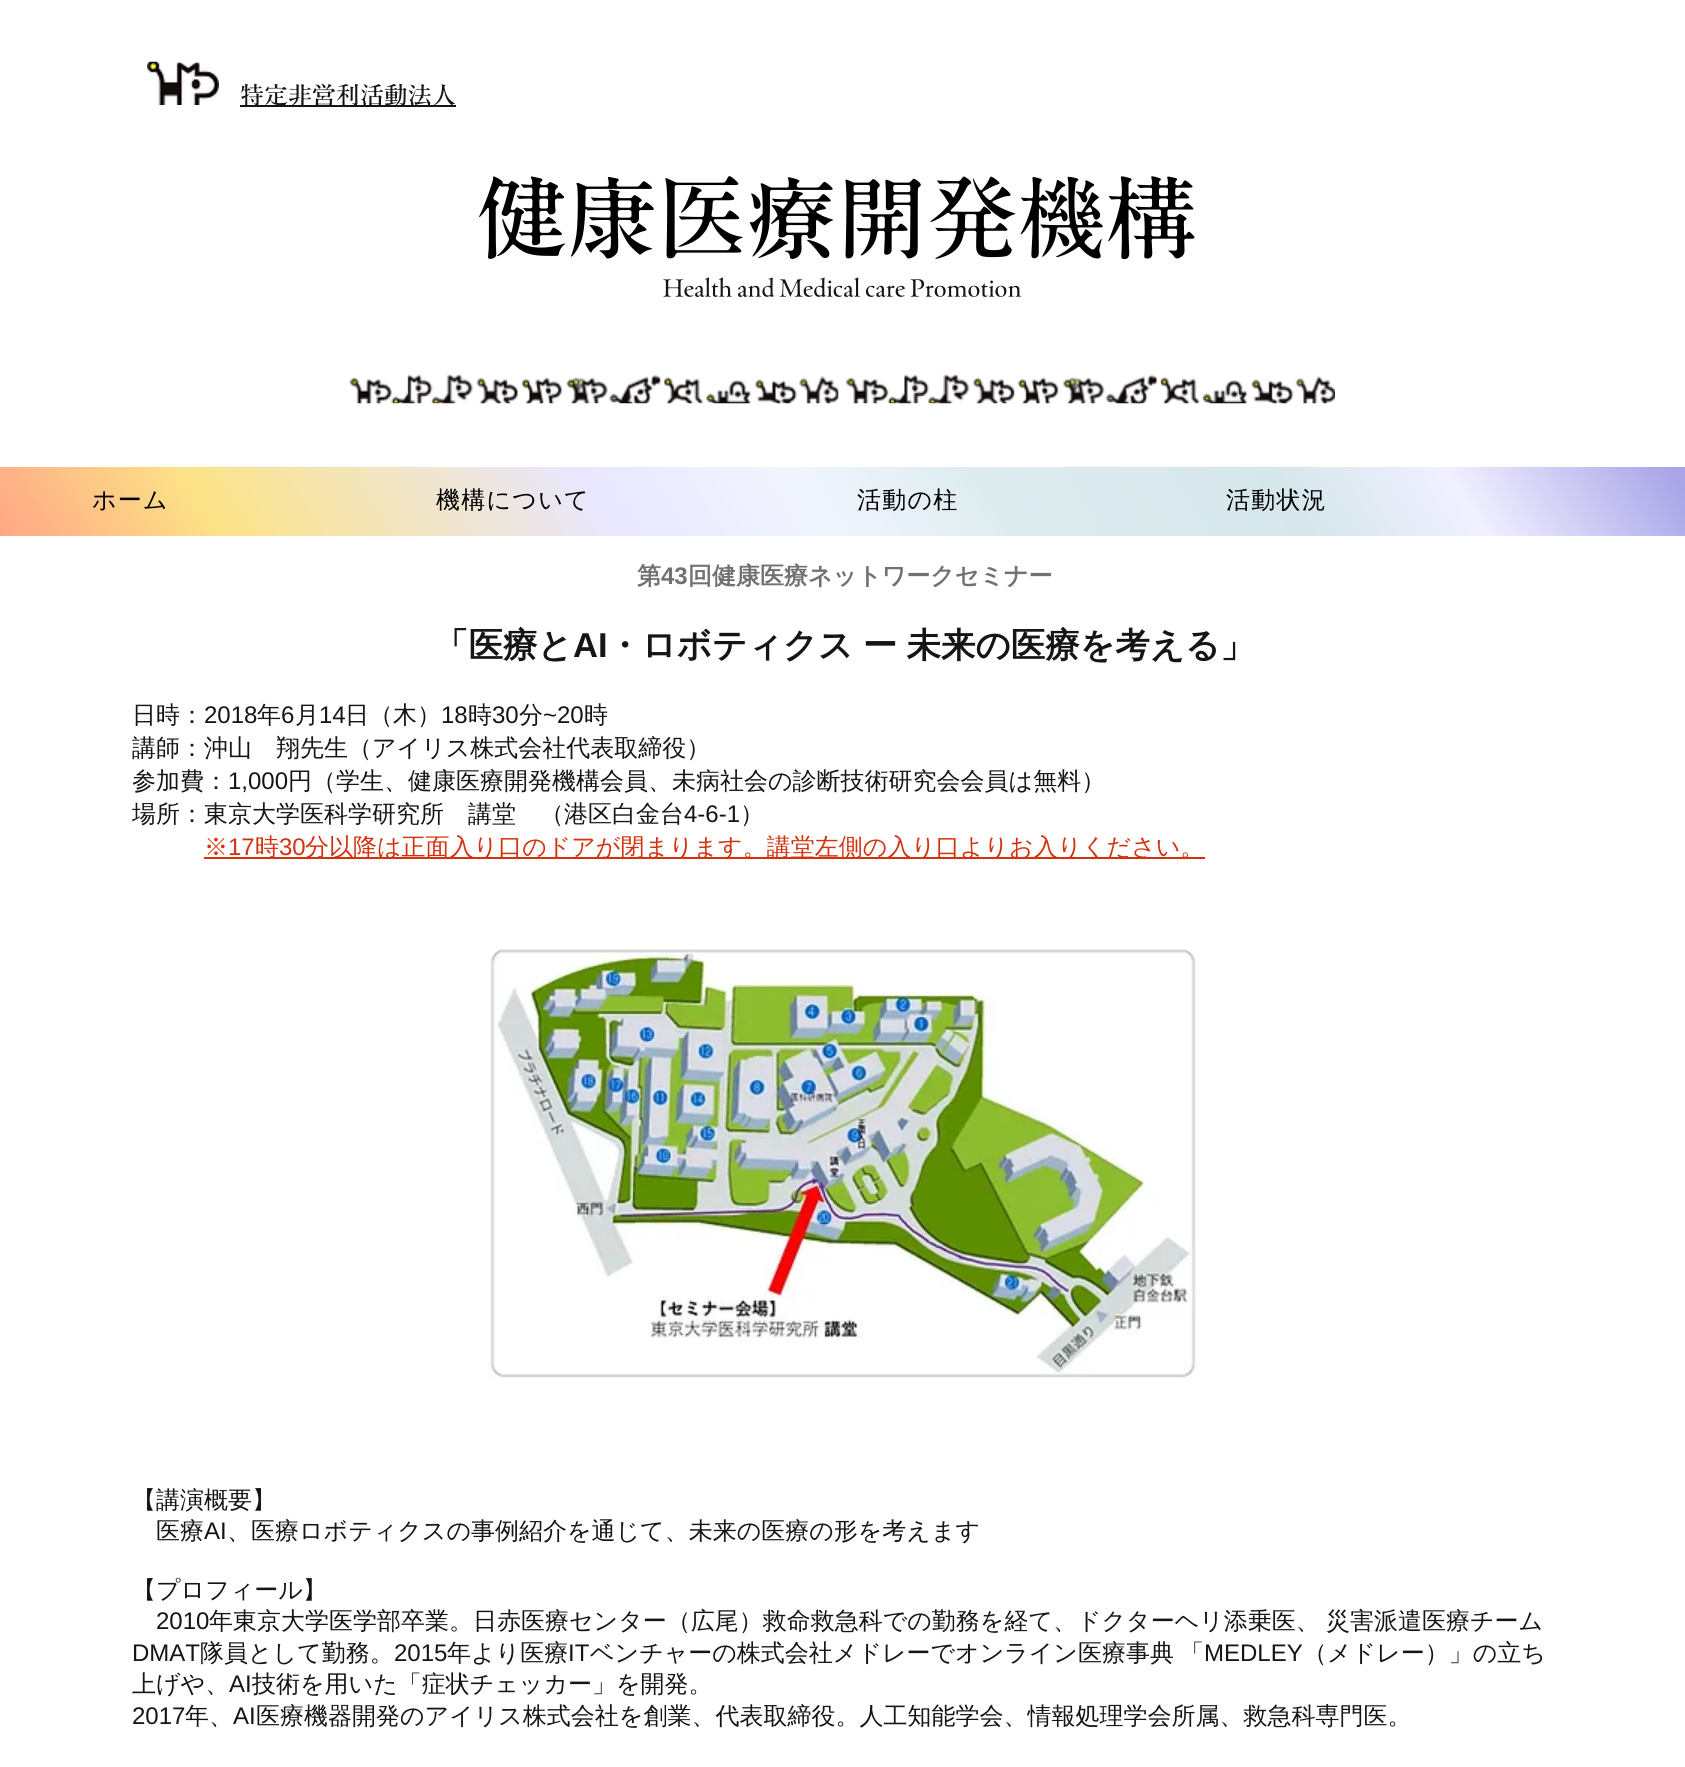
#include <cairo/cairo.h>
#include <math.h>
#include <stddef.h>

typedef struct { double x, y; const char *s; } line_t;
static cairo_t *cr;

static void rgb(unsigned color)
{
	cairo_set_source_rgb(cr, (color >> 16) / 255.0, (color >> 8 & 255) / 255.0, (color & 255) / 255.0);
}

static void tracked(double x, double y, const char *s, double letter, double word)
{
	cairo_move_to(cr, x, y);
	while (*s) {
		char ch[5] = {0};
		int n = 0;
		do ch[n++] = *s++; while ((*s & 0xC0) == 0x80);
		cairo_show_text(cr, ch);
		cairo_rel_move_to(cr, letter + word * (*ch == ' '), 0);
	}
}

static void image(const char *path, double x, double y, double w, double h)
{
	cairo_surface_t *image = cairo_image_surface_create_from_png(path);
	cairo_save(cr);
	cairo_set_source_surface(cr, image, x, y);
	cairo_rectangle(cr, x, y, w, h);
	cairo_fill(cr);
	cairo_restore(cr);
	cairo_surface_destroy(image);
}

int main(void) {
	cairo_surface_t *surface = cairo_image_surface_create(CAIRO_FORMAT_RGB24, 1685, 1767);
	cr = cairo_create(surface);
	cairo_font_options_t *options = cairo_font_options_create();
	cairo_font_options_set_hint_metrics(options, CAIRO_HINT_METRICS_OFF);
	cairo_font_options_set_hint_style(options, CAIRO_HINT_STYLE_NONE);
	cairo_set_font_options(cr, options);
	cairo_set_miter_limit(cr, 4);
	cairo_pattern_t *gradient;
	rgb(0xffffff);
	cairo_paint(cr);
	image("img/1.png", 147, 61, 72, 44);
	rgb(0x161515);
	cairo_rectangle(cr, 240, 105, 216, 2);
	cairo_fill(cr);
	image("img/2.png", 349, 374, 490, 30);
	image("img/3.png", 846, 374, 489, 30);
	gradient = cairo_pattern_create_linear(221, 890, 1465, 112);
	cairo_pattern_add_color_stop_rgba(gradient, 0, 1, 0.651, 0.522, 1);
	cairo_pattern_add_color_stop_rgba(gradient, 0.13, 0.988, 0.89, 0.529, 1);
	cairo_pattern_add_color_stop_rgba(gradient, 0.36, 0.91, 0.906, 1, 1);
	cairo_pattern_add_color_stop_rgba(gradient, 0.48, 0.945, 0.961, 0.996, 1);
	cairo_pattern_add_color_stop_rgba(gradient, 0.59, 0.867, 0.925, 0.937, 1);
	cairo_pattern_add_color_stop_rgba(gradient, 0.76, 0.839, 0.906, 0.925, 1);
	cairo_pattern_add_color_stop_rgba(gradient, 0.86, 0.945, 0.941, 1, 1);
	cairo_pattern_add_color_stop_rgba(gradient, 0.99, 0.663, 0.647, 0.91, 1);
	cairo_set_source(cr, gradient);
	cairo_pattern_destroy(gradient);
	cairo_rectangle(cr, 0, 467, 1685, 69);
	cairo_fill(cr);
	rgb(0xd3310c);
	cairo_rectangle(cr, 204, 857, 1001, 2);
	cairo_fill(cr);
	image("img/4.png", 489, 948, 708, 432);
	cairo_select_font_face(cr, "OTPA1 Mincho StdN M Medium", CAIRO_FONT_SLANT_NORMAL, CAIRO_FONT_WEIGHT_NORMAL);
	cairo_set_font_size(cr, 24);
	rgb(0x161515);
	cairo_move_to(cr, 240, 104);
	cairo_show_text(cr, "特定非営利活動法人");
	cairo_set_font_size(cr, 90);
	rgb(0x000000);
	cairo_move_to(cr, 477, 252);
	cairo_show_text(cr, "健康医療開発機構");
	cairo_set_font_size(cr, 24);
	rgb(0x161515);
	cairo_move_to(cr, 663, 297);
	cairo_show_text(cr, "Health and Medical care Promotion");
	cairo_select_font_face(cr, "WenQuanYi Zen Hei Medium", CAIRO_FONT_SLANT_NORMAL, CAIRO_FONT_WEIGHT_NORMAL);
	rgb(0x000000);
	{
		static const line_t items[] = {
			{92, 508, "ホーム"},
			{436, 508, "機構について"},
			{857, 508, "活動の柱"},
			{1226, 508, "活動状況"},
		};
		for (size_t i = 0; i < sizeof items / sizeof *items; i++) {
			tracked(items[i].x, items[i].y, items[i].s, 1.25, 0);
		}
	}
	cairo_select_font_face(cr, "WenQuanYi Zen Hei", CAIRO_FONT_SLANT_NORMAL, CAIRO_FONT_WEIGHT_BOLD);
	rgb(0x737070);
	cairo_move_to(cr, 637, 584);
	cairo_show_text(cr, "第");
	cairo_select_font_face(cr, "Liberation Sans", CAIRO_FONT_SLANT_NORMAL, CAIRO_FONT_WEIGHT_BOLD);
	cairo_move_to(cr, 661, 584);
	cairo_show_text(cr, "43");
	cairo_select_font_face(cr, "WenQuanYi Zen Hei", CAIRO_FONT_SLANT_NORMAL, CAIRO_FONT_WEIGHT_BOLD);
	cairo_move_to(cr, 688, 584);
	cairo_show_text(cr, "回健康医療ネットワークセミナー");
	cairo_set_font_size(cr, 34.5);
	rgb(0x161515);
	cairo_move_to(cr, 434, 657);
	cairo_show_text(cr, "「医療と");
	cairo_select_font_face(cr, "Liberation Sans", CAIRO_FONT_SLANT_NORMAL, CAIRO_FONT_WEIGHT_BOLD);
	cairo_move_to(cr, 573, 657);
	cairo_show_text(cr, "AI");
	cairo_select_font_face(cr, "WenQuanYi Zen Hei", CAIRO_FONT_SLANT_NORMAL, CAIRO_FONT_WEIGHT_BOLD);
	tracked(607, 657, "・ロボティクス ー 未来の医療を考える」", 0, -1);
	cairo_select_font_face(cr, "WenQuanYi Zen Hei Medium", CAIRO_FONT_SLANT_NORMAL, CAIRO_FONT_WEIGHT_NORMAL);
	cairo_set_font_size(cr, 24);
	cairo_move_to(cr, 132, 723);
	cairo_show_text(cr, "日時：");
	cairo_select_font_face(cr, "Liberation Sans", CAIRO_FONT_SLANT_NORMAL, CAIRO_FONT_WEIGHT_NORMAL);
	cairo_move_to(cr, 204, 723);
	cairo_show_text(cr, "2018");
	cairo_select_font_face(cr, "WenQuanYi Zen Hei Medium", CAIRO_FONT_SLANT_NORMAL, CAIRO_FONT_WEIGHT_NORMAL);
	cairo_move_to(cr, 257, 723);
	cairo_show_text(cr, "年");
	cairo_select_font_face(cr, "Liberation Sans", CAIRO_FONT_SLANT_NORMAL, CAIRO_FONT_WEIGHT_NORMAL);
	cairo_move_to(cr, 281, 723);
	cairo_show_text(cr, "6");
	cairo_select_font_face(cr, "WenQuanYi Zen Hei Medium", CAIRO_FONT_SLANT_NORMAL, CAIRO_FONT_WEIGHT_NORMAL);
	cairo_move_to(cr, 295, 723);
	cairo_show_text(cr, "月");
	cairo_select_font_face(cr, "Liberation Sans", CAIRO_FONT_SLANT_NORMAL, CAIRO_FONT_WEIGHT_NORMAL);
	cairo_move_to(cr, 319, 723);
	cairo_show_text(cr, "14");
	cairo_select_font_face(cr, "WenQuanYi Zen Hei Medium", CAIRO_FONT_SLANT_NORMAL, CAIRO_FONT_WEIGHT_NORMAL);
	cairo_move_to(cr, 345, 723);
	cairo_show_text(cr, "日（木）");
	cairo_select_font_face(cr, "Liberation Sans", CAIRO_FONT_SLANT_NORMAL, CAIRO_FONT_WEIGHT_NORMAL);
	cairo_move_to(cr, 441, 723);
	cairo_show_text(cr, "18");
	cairo_select_font_face(cr, "WenQuanYi Zen Hei Medium", CAIRO_FONT_SLANT_NORMAL, CAIRO_FONT_WEIGHT_NORMAL);
	cairo_move_to(cr, 468, 723);
	cairo_show_text(cr, "時");
	cairo_select_font_face(cr, "Liberation Sans", CAIRO_FONT_SLANT_NORMAL, CAIRO_FONT_WEIGHT_NORMAL);
	cairo_move_to(cr, 492, 723);
	cairo_show_text(cr, "30");
	cairo_select_font_face(cr, "WenQuanYi Zen Hei Medium", CAIRO_FONT_SLANT_NORMAL, CAIRO_FONT_WEIGHT_NORMAL);
	cairo_move_to(cr, 519, 723);
	cairo_show_text(cr, "分");
	cairo_select_font_face(cr, "Liberation Sans", CAIRO_FONT_SLANT_NORMAL, CAIRO_FONT_WEIGHT_NORMAL);
	cairo_move_to(cr, 543, 723);
	cairo_show_text(cr, "~20");
	cairo_select_font_face(cr, "WenQuanYi Zen Hei Medium", CAIRO_FONT_SLANT_NORMAL, CAIRO_FONT_WEIGHT_NORMAL);
	{
		static const line_t items[] = {
			{584, 723, "時"},
			{132, 756, "講師：沖山　翔先生（アイリス株式会社代表取締役）"},
			{132, 789, "参加費："},
		};
		for (size_t i = 0; i < sizeof items / sizeof *items; i++) {
			cairo_move_to(cr, items[i].x, items[i].y);
			cairo_show_text(cr, items[i].s);
		}
	}
	cairo_select_font_face(cr, "Liberation Sans", CAIRO_FONT_SLANT_NORMAL, CAIRO_FONT_WEIGHT_NORMAL);
	cairo_move_to(cr, 228, 789);
	cairo_show_text(cr, "1,000");
	cairo_select_font_face(cr, "WenQuanYi Zen Hei Medium", CAIRO_FONT_SLANT_NORMAL, CAIRO_FONT_WEIGHT_NORMAL);
	{
		static const line_t items[] = {
			{288, 789, "円（学生、健康医療開発機構会員、未病社会の診断技術研究会会員は無料）"},
			{132, 822, "場所：東京大学医科学研究所"},
			{468, 822, "講堂　（港区白金台"},
		};
		for (size_t i = 0; i < sizeof items / sizeof *items; i++) {
			cairo_move_to(cr, items[i].x, items[i].y);
			cairo_show_text(cr, items[i].s);
		}
	}
	cairo_select_font_face(cr, "Liberation Sans", CAIRO_FONT_SLANT_NORMAL, CAIRO_FONT_WEIGHT_NORMAL);
	cairo_move_to(cr, 684, 822);
	cairo_show_text(cr, "4-6-1");
	cairo_select_font_face(cr, "WenQuanYi Zen Hei Medium", CAIRO_FONT_SLANT_NORMAL, CAIRO_FONT_WEIGHT_NORMAL);
	cairo_move_to(cr, 740, 822);
	cairo_show_text(cr, "）");
	rgb(0xd3310c);
	cairo_move_to(cr, 204, 855);
	cairo_show_text(cr, "※");
	cairo_select_font_face(cr, "Liberation Sans", CAIRO_FONT_SLANT_NORMAL, CAIRO_FONT_WEIGHT_NORMAL);
	cairo_move_to(cr, 228, 855);
	cairo_show_text(cr, "17");
	cairo_select_font_face(cr, "WenQuanYi Zen Hei Medium", CAIRO_FONT_SLANT_NORMAL, CAIRO_FONT_WEIGHT_NORMAL);
	cairo_move_to(cr, 255, 855);
	cairo_show_text(cr, "時");
	cairo_select_font_face(cr, "Liberation Sans", CAIRO_FONT_SLANT_NORMAL, CAIRO_FONT_WEIGHT_NORMAL);
	cairo_move_to(cr, 279, 855);
	cairo_show_text(cr, "30");
	cairo_select_font_face(cr, "WenQuanYi Zen Hei Medium", CAIRO_FONT_SLANT_NORMAL, CAIRO_FONT_WEIGHT_NORMAL);
	cairo_move_to(cr, 305, 855);
	cairo_show_text(cr, "分以降は正面入り口のドアが閉まります。講堂左側の入り口よりお入りください。");
	rgb(0x161515);
	cairo_move_to(cr, 132, 1508);
	cairo_show_text(cr, "【講演概要】");
	cairo_move_to(cr, 156, 1539);
	cairo_show_text(cr, "医療");
	cairo_select_font_face(cr, "Liberation Sans", CAIRO_FONT_SLANT_NORMAL, CAIRO_FONT_WEIGHT_NORMAL);
	cairo_move_to(cr, 204, 1539);
	cairo_show_text(cr, "AI");
	cairo_select_font_face(cr, "WenQuanYi Zen Hei Medium", CAIRO_FONT_SLANT_NORMAL, CAIRO_FONT_WEIGHT_NORMAL);
	cairo_move_to(cr, 227, 1539);
	cairo_show_text(cr, "、医療ロボティクスの事例紹介を通じて、未来の医療の形を考えます");
	cairo_move_to(cr, 132, 1598);
	cairo_show_text(cr, "【プロフィール】");
	cairo_select_font_face(cr, "Liberation Sans", CAIRO_FONT_SLANT_NORMAL, CAIRO_FONT_WEIGHT_NORMAL);
	cairo_move_to(cr, 156, 1629);
	cairo_show_text(cr, "2010");
	cairo_select_font_face(cr, "WenQuanYi Zen Hei Medium", CAIRO_FONT_SLANT_NORMAL, CAIRO_FONT_WEIGHT_NORMAL);
	tracked(209, 1629, "年東京大学医学部卒業。日赤医療センター（広尾）救命救急科での勤務を経て、ドクターヘリ添乗医、 災害派遣医療チーム", 0, -1);
	cairo_select_font_face(cr, "Liberation Sans", CAIRO_FONT_SLANT_NORMAL, CAIRO_FONT_WEIGHT_NORMAL);
	cairo_move_to(cr, 132, 1661);
	cairo_show_text(cr, "DMAT");
	cairo_select_font_face(cr, "WenQuanYi Zen Hei Medium", CAIRO_FONT_SLANT_NORMAL, CAIRO_FONT_WEIGHT_NORMAL);
	cairo_move_to(cr, 200, 1661);
	cairo_show_text(cr, "隊員として勤務。");
	cairo_select_font_face(cr, "Liberation Sans", CAIRO_FONT_SLANT_NORMAL, CAIRO_FONT_WEIGHT_NORMAL);
	cairo_move_to(cr, 394, 1661);
	cairo_show_text(cr, "2015");
	cairo_select_font_face(cr, "WenQuanYi Zen Hei Medium", CAIRO_FONT_SLANT_NORMAL, CAIRO_FONT_WEIGHT_NORMAL);
	cairo_move_to(cr, 447, 1661);
	cairo_show_text(cr, "年より医療");
	cairo_select_font_face(cr, "Liberation Sans", CAIRO_FONT_SLANT_NORMAL, CAIRO_FONT_WEIGHT_NORMAL);
	cairo_move_to(cr, 568, 1661);
	cairo_show_text(cr, "IT");
	cairo_select_font_face(cr, "WenQuanYi Zen Hei Medium", CAIRO_FONT_SLANT_NORMAL, CAIRO_FONT_WEIGHT_NORMAL);
	tracked(590, 1661, "ベンチャーの株式会社メドレーでオンライン医療事典 「", 0, -1);
	cairo_select_font_face(cr, "Liberation Sans", CAIRO_FONT_SLANT_NORMAL, CAIRO_FONT_WEIGHT_NORMAL);
	cairo_move_to(cr, 1204, 1661);
	cairo_show_text(cr, "MEDLEY");
	cairo_select_font_face(cr, "WenQuanYi Zen Hei Medium", CAIRO_FONT_SLANT_NORMAL, CAIRO_FONT_WEIGHT_NORMAL);
	cairo_move_to(cr, 1303, 1661);
	cairo_show_text(cr, "（メドレー）」の立ち");
	cairo_move_to(cr, 132, 1692);
	cairo_show_text(cr, "上げや、");
	cairo_select_font_face(cr, "Liberation Sans", CAIRO_FONT_SLANT_NORMAL, CAIRO_FONT_WEIGHT_NORMAL);
	cairo_move_to(cr, 229, 1692);
	cairo_show_text(cr, "AI");
	cairo_select_font_face(cr, "WenQuanYi Zen Hei Medium", CAIRO_FONT_SLANT_NORMAL, CAIRO_FONT_WEIGHT_NORMAL);
	cairo_move_to(cr, 252, 1692);
	cairo_show_text(cr, "技術を用いた「症状チェッカー」を開発。");
	cairo_select_font_face(cr, "Liberation Sans", CAIRO_FONT_SLANT_NORMAL, CAIRO_FONT_WEIGHT_NORMAL);
	cairo_move_to(cr, 132, 1724);
	cairo_show_text(cr, "2017");
	cairo_select_font_face(cr, "WenQuanYi Zen Hei Medium", CAIRO_FONT_SLANT_NORMAL, CAIRO_FONT_WEIGHT_NORMAL);
	cairo_move_to(cr, 185, 1724);
	cairo_show_text(cr, "年、");
	cairo_select_font_face(cr, "Liberation Sans", CAIRO_FONT_SLANT_NORMAL, CAIRO_FONT_WEIGHT_NORMAL);
	cairo_move_to(cr, 233, 1724);
	cairo_show_text(cr, "AI");
	cairo_select_font_face(cr, "WenQuanYi Zen Hei Medium", CAIRO_FONT_SLANT_NORMAL, CAIRO_FONT_WEIGHT_NORMAL);
	cairo_move_to(cr, 256, 1724);
	cairo_show_text(cr, "医療機器開発のアイリス株式会社を創業、代表取締役。人工知能学会、情報処理学会所属、救急科専門医。");
	cairo_surface_write_to_png(surface, "page.png");
	cairo_font_options_destroy(options);
	cairo_destroy(cr);
	cairo_surface_destroy(surface);
	return 0;
}
